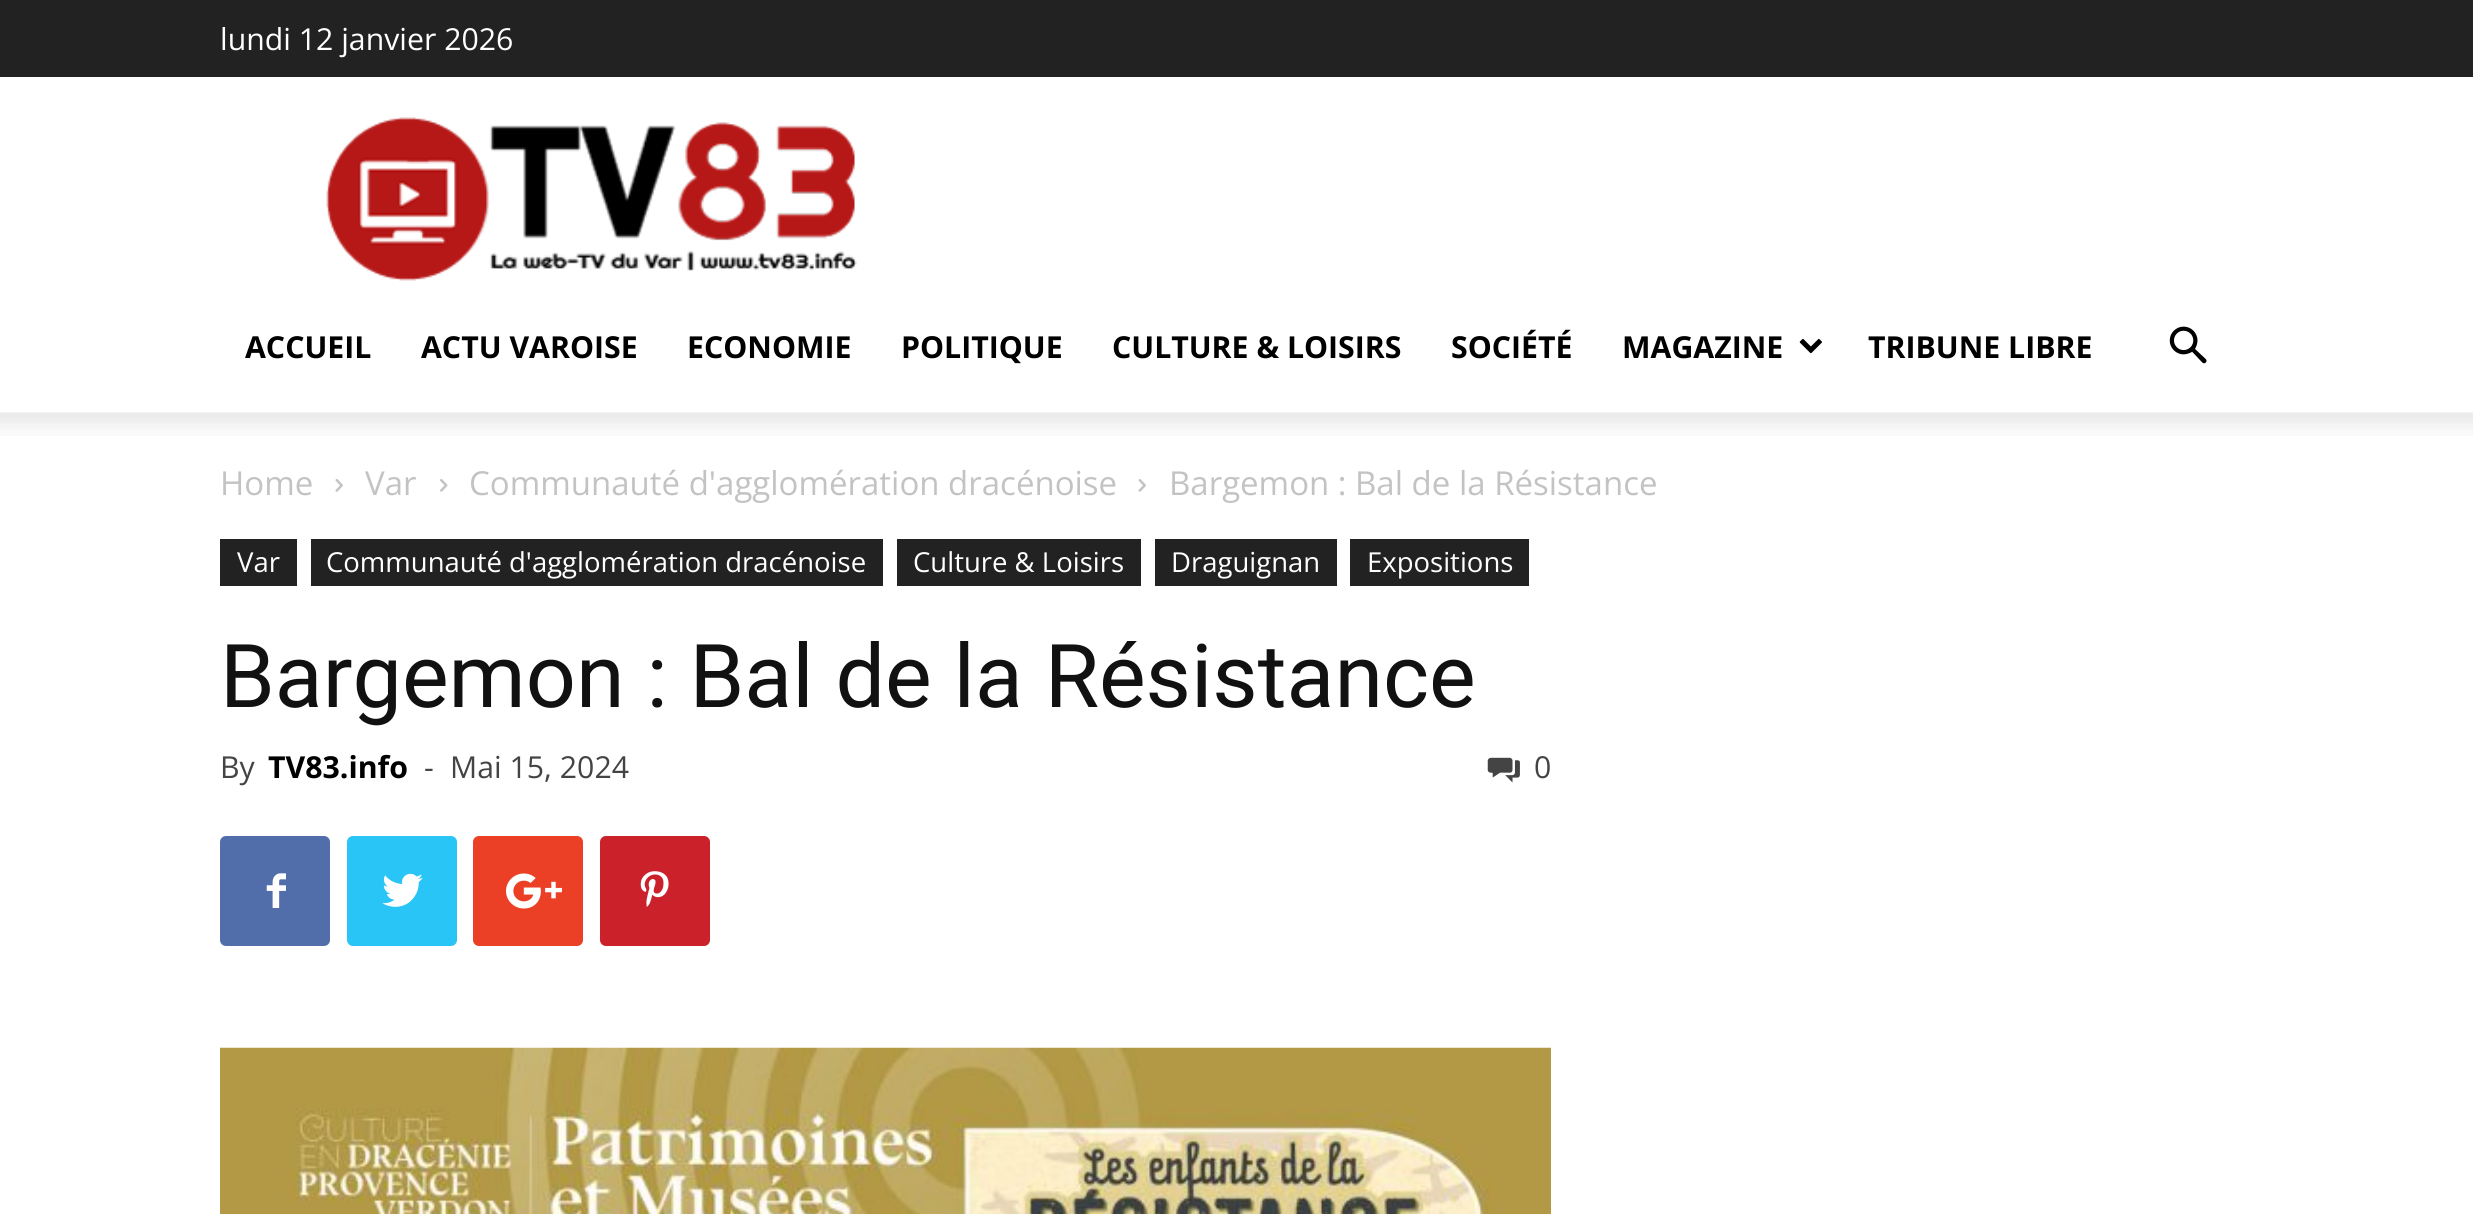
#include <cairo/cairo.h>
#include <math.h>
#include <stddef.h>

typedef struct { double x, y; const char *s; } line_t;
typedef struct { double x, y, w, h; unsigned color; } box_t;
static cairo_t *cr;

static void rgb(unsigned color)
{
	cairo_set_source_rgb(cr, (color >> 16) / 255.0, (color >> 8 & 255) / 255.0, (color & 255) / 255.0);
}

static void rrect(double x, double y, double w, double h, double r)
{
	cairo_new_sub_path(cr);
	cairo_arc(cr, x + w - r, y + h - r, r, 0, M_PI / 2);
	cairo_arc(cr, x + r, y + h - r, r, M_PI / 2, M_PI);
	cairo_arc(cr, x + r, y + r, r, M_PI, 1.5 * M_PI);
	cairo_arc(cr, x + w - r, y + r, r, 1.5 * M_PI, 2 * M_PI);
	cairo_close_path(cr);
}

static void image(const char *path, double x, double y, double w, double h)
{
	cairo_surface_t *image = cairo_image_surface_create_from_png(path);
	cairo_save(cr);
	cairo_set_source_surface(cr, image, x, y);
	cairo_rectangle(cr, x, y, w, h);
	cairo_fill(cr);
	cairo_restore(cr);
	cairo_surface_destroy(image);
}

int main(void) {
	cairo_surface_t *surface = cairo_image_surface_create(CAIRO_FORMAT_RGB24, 2473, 1214);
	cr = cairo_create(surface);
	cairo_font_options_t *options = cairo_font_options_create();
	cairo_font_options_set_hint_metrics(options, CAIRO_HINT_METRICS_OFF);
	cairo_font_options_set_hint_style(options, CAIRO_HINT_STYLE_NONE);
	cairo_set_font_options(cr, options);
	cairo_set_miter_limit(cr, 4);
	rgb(0xffffff);
	cairo_paint(cr);
	rgb(0x222222);
	cairo_rectangle(cr, 0, 0, 2473, 77);
	cairo_fill(cr);
	image("img/1.png", 326, 117, 531, 164);
	image("img/2.png", 1799, 338, 23, 16);
	image("img/3.png", 2169, 326, 38, 38);
	image("img/4.png", 0, 412, 2473, 24);
	image("img/5.png", 335, 479, 8, 13);
	image("img/6.png", 440, 479, 8, 13);
	image("img/5.png", 1138, 479, 8, 13);
	{
		static const box_t items[] = {
			{220, 539, 77, 47, 0x222222},
			{311, 539, 572, 47, 0x222222},
			{897, 539, 244, 47, 0x222222},
			{1155, 539, 182, 47, 0x222222},
			{1350, 539, 179, 47, 0x222222},
		};
		for (size_t i = 0; i < sizeof items / sizeof *items; i++) {
			rgb(items[i].color);
			cairo_rectangle(cr, items[i].x, items[i].y, items[i].w, items[i].h);
			cairo_fill(cr);
		}
	}
	image("img/7.png", 1487, 757, 33, 26);
	rgb(0x516eab);
	rrect(220, 836, 110, 110, 6);
	cairo_fill(cr);
	image("img/8.png", 266, 873, 20, 35);
	rgb(0x29c5f6);
	rrect(347, 836, 110, 110, 6);
	cairo_fill(cr);
	image("img/9.png", 382, 873, 41, 34);
	rgb(0xeb4026);
	rrect(473, 836, 110, 110, 6);
	cairo_fill(cr);
	image("img/10.png", 506, 873, 56, 36);
	rgb(0xca212a);
	rrect(600, 836, 110, 110, 6);
	cairo_fill(cr);
	image("img/11.png", 640, 871, 29, 36);
	image("img/12.png", 220, 1047, 1331, 167);
	cairo_select_font_face(cr, "Open Sans", CAIRO_FONT_SLANT_NORMAL, CAIRO_FONT_WEIGHT_NORMAL);
	cairo_set_font_size(cr, 30.25);
	rgb(0xffffff);
	cairo_move_to(cr, 220, 50);
	cairo_show_text(cr, "lundi 12 janvier 2026");
	cairo_select_font_face(cr, "Open Sans", CAIRO_FONT_SLANT_NORMAL, CAIRO_FONT_WEIGHT_BOLD);
	rgb(0x000000);
	{
		static const line_t items[] = {
			{245, 358, "ACCUEIL"},
			{421, 358, "ACTU VAROISE"},
			{687, 358, "ECONOMIE"},
			{901, 358, "POLITIQUE"},
			{1112, 358, "CULTURE & LOISIRS"},
			{1451, 358, "SOCIÉTÉ"},
			{1622, 358, "MAGAZINE"},
			{1868, 358, "TRIBUNE LIBRE"},
		};
		for (size_t i = 0; i < sizeof items / sizeof *items; i++) {
			cairo_move_to(cr, items[i].x, items[i].y);
			cairo_show_text(cr, items[i].s);
		}
	}
	cairo_select_font_face(cr, "Open Sans", CAIRO_FONT_SLANT_NORMAL, CAIRO_FONT_WEIGHT_NORMAL);
	cairo_set_font_size(cr, 33);
	rgb(0xc3c3c3);
	{
		static const line_t items[] = {
			{220, 495, "Home"},
			{365, 495, "Var"},
			{469, 495, "Communauté d'agglomération dracénoise"},
			{1169, 495, "Bargemon : Bal de la Résistance"},
		};
		for (size_t i = 0; i < sizeof items / sizeof *items; i++) {
			cairo_move_to(cr, items[i].x, items[i].y);
			cairo_show_text(cr, items[i].s);
		}
	}
	cairo_set_font_size(cr, 27.5);
	rgb(0xffffff);
	{
		static const line_t items[] = {
			{237, 572, "Var"},
			{326, 572, "Communauté d'agglomération dracénoise"},
			{913, 572, "Culture & Loisirs"},
			{1171, 572, "Draguignan"},
			{1367, 572, "Expositions"},
		};
		for (size_t i = 0; i < sizeof items / sizeof *items; i++) {
			cairo_move_to(cr, items[i].x, items[i].y);
			cairo_show_text(cr, items[i].s);
		}
	}
	cairo_select_font_face(cr, "Roboto", CAIRO_FONT_SLANT_NORMAL, CAIRO_FONT_WEIGHT_NORMAL);
	cairo_set_font_size(cr, 88);
	rgb(0x111111);
	cairo_move_to(cr, 220, 707);
	cairo_show_text(cr, "Bargemon : Bal de la Résistance");
	cairo_select_font_face(cr, "Open Sans", CAIRO_FONT_SLANT_NORMAL, CAIRO_FONT_WEIGHT_NORMAL);
	cairo_set_font_size(cr, 30.25);
	rgb(0x444444);
	cairo_move_to(cr, 220, 778);
	cairo_show_text(cr, "By");
	cairo_select_font_face(cr, "Open Sans", CAIRO_FONT_SLANT_NORMAL, CAIRO_FONT_WEIGHT_BOLD);
	rgb(0x000000);
	cairo_move_to(cr, 268, 778);
	cairo_show_text(cr, "TV83.info");
	cairo_select_font_face(cr, "Open Sans", CAIRO_FONT_SLANT_NORMAL, CAIRO_FONT_WEIGHT_NORMAL);
	rgb(0x444444);
	{
		static const line_t items[] = {
			{424, 778, "-"},
			{450, 778, "Mai 15, 2024"},
			{1534, 778, "0"},
		};
		for (size_t i = 0; i < sizeof items / sizeof *items; i++) {
			cairo_move_to(cr, items[i].x, items[i].y);
			cairo_show_text(cr, items[i].s);
		}
	}
	cairo_surface_write_to_png(surface, "page.png");
	cairo_font_options_destroy(options);
	cairo_destroy(cr);
	cairo_surface_destroy(surface);
	return 0;
}
